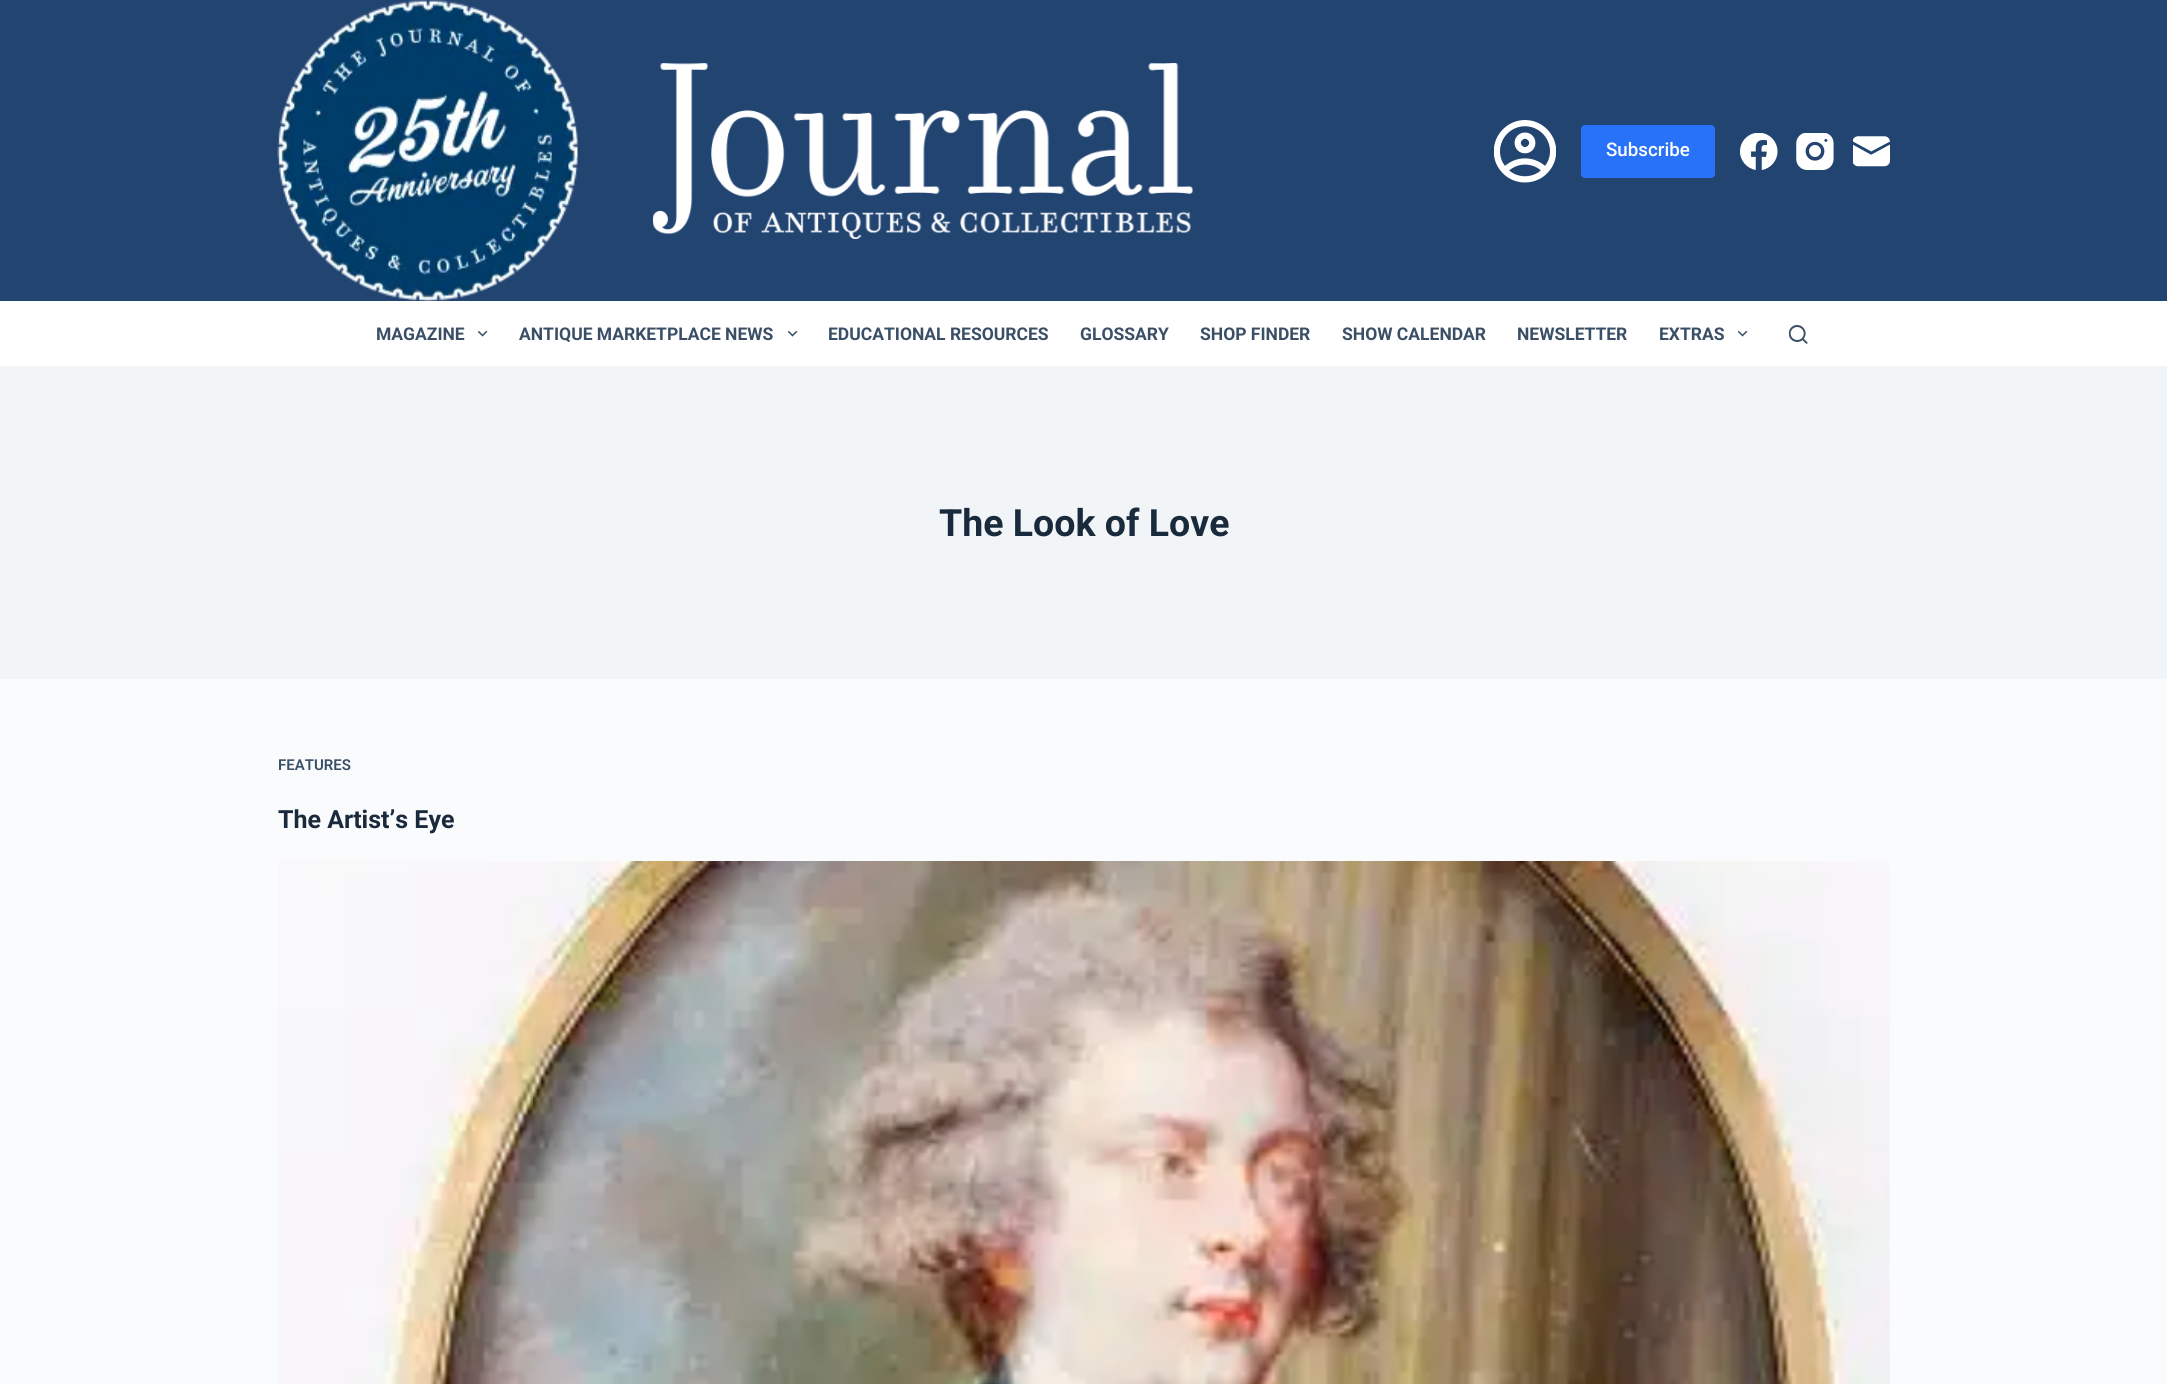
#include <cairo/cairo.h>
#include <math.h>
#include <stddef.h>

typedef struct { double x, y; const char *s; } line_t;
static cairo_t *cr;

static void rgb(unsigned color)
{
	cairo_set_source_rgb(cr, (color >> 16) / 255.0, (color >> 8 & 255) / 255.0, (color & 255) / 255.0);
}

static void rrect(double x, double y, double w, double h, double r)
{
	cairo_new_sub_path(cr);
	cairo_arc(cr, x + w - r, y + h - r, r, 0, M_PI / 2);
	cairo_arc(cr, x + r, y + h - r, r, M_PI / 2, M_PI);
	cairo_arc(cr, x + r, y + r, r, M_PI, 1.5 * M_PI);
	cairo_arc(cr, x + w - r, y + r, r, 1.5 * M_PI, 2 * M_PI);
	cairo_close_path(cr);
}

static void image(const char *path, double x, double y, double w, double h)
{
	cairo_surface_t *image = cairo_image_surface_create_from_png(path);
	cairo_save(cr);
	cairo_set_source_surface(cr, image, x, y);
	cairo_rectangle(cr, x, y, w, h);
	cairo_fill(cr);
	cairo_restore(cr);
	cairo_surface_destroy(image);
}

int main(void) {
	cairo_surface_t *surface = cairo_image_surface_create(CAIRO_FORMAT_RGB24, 2167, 1384);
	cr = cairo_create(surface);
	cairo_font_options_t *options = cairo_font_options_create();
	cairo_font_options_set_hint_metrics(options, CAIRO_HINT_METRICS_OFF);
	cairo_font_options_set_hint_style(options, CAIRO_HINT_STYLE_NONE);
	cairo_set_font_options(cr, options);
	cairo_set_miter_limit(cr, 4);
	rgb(0xfafbfc);
	cairo_paint(cr);
	rgb(0x224471);
	cairo_rectangle(cr, 0, 0, 2167, 301);
	cairo_fill(cr);
	image("img/1.png", 277, 0, 301, 301);
	image("img/2.png", 653, 63, 540, 176);
	image("img/3.png", 1494, 120, 62, 63);
	rgb(0x2872fa);
	rrect(1581, 125, 134, 53, 4);
	cairo_fill(cr);
	image("img/4.png", 1740, 133, 38, 37);
	image("img/5.png", 1796, 133, 38, 37);
	image("img/6.png", 1853, 136, 37, 31);
	rgb(0xffffff);
	cairo_rectangle(cr, 0, 301, 2167, 65);
	cairo_fill(cr);
	image("img/7.png", 478, 331, 10, 6);
	image("img/7.png", 788, 331, 10, 6);
	image("img/7.png", 1738, 331, 10, 6);
	image("img/8.png", 1789, 325, 19, 19);
	rgb(0xf2f5f7);
	cairo_rectangle(cr, 0, 366, 2167, 313);
	cairo_fill(cr);
	image("img/9.png", 278, 861, 1612, 523);
	cairo_select_font_face(cr, "Roboto Medium", CAIRO_FONT_SLANT_NORMAL, CAIRO_FONT_WEIGHT_NORMAL);
	cairo_set_font_size(cr, 18.75);
	rgb(0xffffff);
	cairo_move_to(cr, 1606, 156);
	cairo_show_text(cr, "Subscribe");
	cairo_select_font_face(cr, "Roboto", CAIRO_FONT_SLANT_NORMAL, CAIRO_FONT_WEIGHT_BOLD);
	cairo_set_font_size(cr, 17.5);
	rgb(0x3a4f66);
	{
		static const line_t items[] = {
			{376, 340, "MAGAZINE"},
			{519, 340, "ANTIQUE MARKETPLACE NEWS"},
			{828, 340, "EDUCATIONAL RESOURCES"},
			{1080, 340, "GLOSSARY"},
			{1200, 340, "SHOP FINDER"},
			{1342, 340, "SHOW CALENDAR"},
			{1517, 340, "NEWSLETTER"},
			{1659, 340, "EXTRAS"},
		};
		for (size_t i = 0; i < sizeof items / sizeof *items; i++) {
			cairo_move_to(cr, items[i].x, items[i].y);
			cairo_show_text(cr, items[i].s);
		}
	}
	cairo_set_font_size(cr, 37.5);
	rgb(0x192a3d);
	cairo_move_to(cr, 939, 536);
	cairo_show_text(cr, "The Look of Love");
	cairo_select_font_face(cr, "Roboto SemiBold", CAIRO_FONT_SLANT_NORMAL, CAIRO_FONT_WEIGHT_NORMAL);
	cairo_set_font_size(cr, 15);
	rgb(0x3a4f66);
	cairo_move_to(cr, 278, 770);
	cairo_show_text(cr, "FEATURES");
	cairo_select_font_face(cr, "Roboto", CAIRO_FONT_SLANT_NORMAL, CAIRO_FONT_WEIGHT_BOLD);
	cairo_set_font_size(cr, 25);
	rgb(0x192a3d);
	cairo_move_to(cr, 278, 828);
	cairo_show_text(cr, "The Artist’s Eye");
	cairo_surface_write_to_png(surface, "page.png");
	cairo_font_options_destroy(options);
	cairo_destroy(cr);
	cairo_surface_destroy(surface);
	return 0;
}
